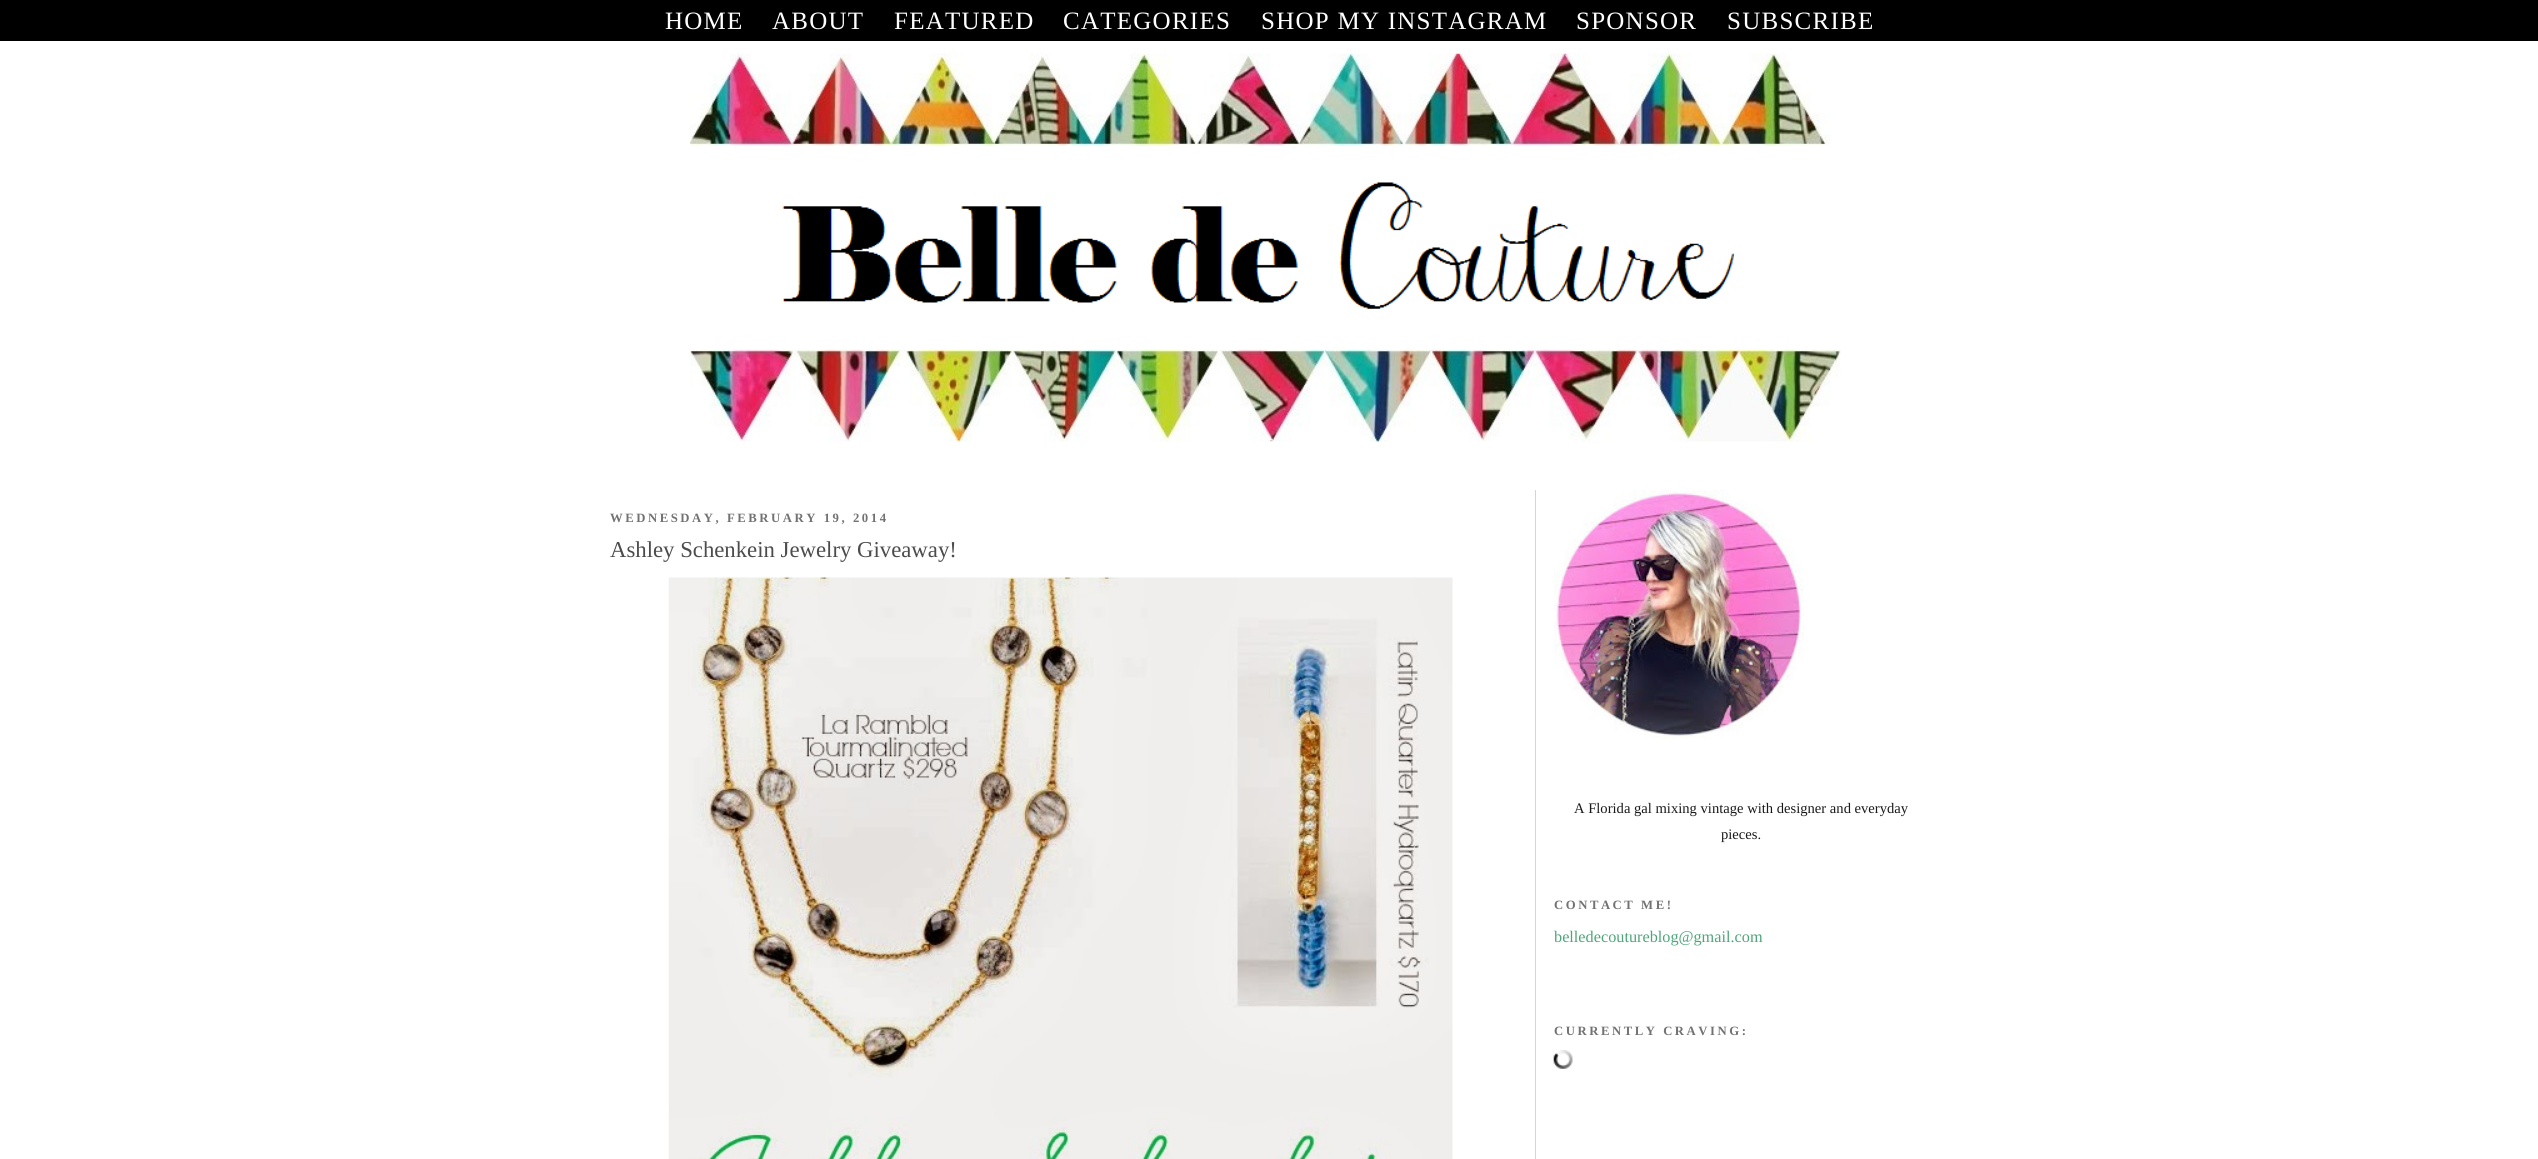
#include <cairo/cairo.h>
#include <math.h>
#include <stddef.h>

typedef struct { double x, y; const char *s; } line_t;
static cairo_t *cr;

static void rgb(unsigned color)
{
	cairo_set_source_rgb(cr, (color >> 16) / 255.0, (color >> 8 & 255) / 255.0, (color & 255) / 255.0);
}

static void tracked(double x, double y, const char *s, double letter, double word)
{
	cairo_move_to(cr, x, y);
	while (*s) {
		char ch[5] = {0};
		int n = 0;
		do ch[n++] = *s++; while ((*s & 0xC0) == 0x80);
		cairo_show_text(cr, ch);
		cairo_rel_move_to(cr, letter + word * (*ch == ' '), 0);
	}
}

static void image(const char *path, double x, double y, double w, double h)
{
	cairo_surface_t *image = cairo_image_surface_create_from_png(path);
	cairo_save(cr);
	cairo_set_source_surface(cr, image, x, y);
	cairo_rectangle(cr, x, y, w, h);
	cairo_fill(cr);
	cairo_restore(cr);
	cairo_surface_destroy(image);
}

int main(void) {
	cairo_surface_t *surface = cairo_image_surface_create(CAIRO_FORMAT_RGB24, 2538, 1159);
	cr = cairo_create(surface);
	cairo_font_options_t *options = cairo_font_options_create();
	cairo_font_options_set_hint_metrics(options, CAIRO_HINT_METRICS_OFF);
	cairo_font_options_set_hint_style(options, CAIRO_HINT_STYLE_NONE);
	cairo_set_font_options(cr, options);
	cairo_set_miter_limit(cr, 4);
	rgb(0xffffff);
	cairo_paint(cr);
	rgb(0x000000);
	cairo_rectangle(cr, 0, 0, 2538, 41);
	cairo_fill(cr);
	image("img/1.png", 690, 53, 1151, 389);
	rgb(0xdfd3c1);
	cairo_rectangle(cr, 1535, 490, 1, 669);
	cairo_fill(cr);
	image("img/2.png", 668, 577, 785, 582);
	image("img/3.png", 1554, 490, 250, 249);
	image("img/4.png", 1553, 1050, 20, 19);
	cairo_select_font_face(cr, "Liberation Serif", CAIRO_FONT_SLANT_NORMAL, CAIRO_FONT_WEIGHT_NORMAL);
	cairo_set_font_size(cr, 25);
	rgb(0xffffff);
	{
		static const line_t items[] = {
			{665, 29, "HOME"},
			{772, 29, "ABOUT"},
			{894, 29, "FEATURED"},
			{1063, 29, "CATEGORIES"},
			{1261, 29, "SHOP MY INSTAGRAM"},
			{1576, 29, "SPONSOR"},
			{1727, 29, "SUBSCRIBE"},
		};
		for (size_t i = 0; i < sizeof items / sizeof *items; i++) {
			tracked(items[i].x, items[i].y, items[i].s, 1.25, 0);
		}
	}
	cairo_select_font_face(cr, "Liberation Serif", CAIRO_FONT_SLANT_NORMAL, CAIRO_FONT_WEIGHT_BOLD);
	cairo_set_font_size(cr, 12.7);
	rgb(0x727272);
	tracked(610, 522, "WEDNESDAY, FEBRUARY 19, 2014", 2.55, 0);
	cairo_select_font_face(cr, "Liberation Serif", CAIRO_FONT_SLANT_NORMAL, CAIRO_FONT_WEIGHT_NORMAL);
	cairo_set_font_size(cr, 22.75);
	rgb(0x4c4c4c);
	cairo_move_to(cr, 610, 557);
	cairo_show_text(cr, "Ashley Schenkein Jewelry Giveaway!");
	cairo_set_font_size(cr, 14.6);
	rgb(0x191919);
	cairo_move_to(cr, 1574, 813);
	cairo_show_text(cr, "A Florida gal mixing vintage with designer and everyday");
	cairo_move_to(cr, 1721, 839);
	cairo_show_text(cr, "pieces.");
	cairo_select_font_face(cr, "Liberation Serif", CAIRO_FONT_SLANT_NORMAL, CAIRO_FONT_WEIGHT_BOLD);
	cairo_set_font_size(cr, 12.7);
	rgb(0x727272);
	tracked(1554, 909, "CONTACT ME!", 2.55, 0);
	cairo_select_font_face(cr, "Liberation Serif", CAIRO_FONT_SLANT_NORMAL, CAIRO_FONT_WEIGHT_NORMAL);
	cairo_set_font_size(cr, 16.25);
	rgb(0x4da679);
	cairo_move_to(cr, 1554, 942);
	cairo_show_text(cr, "belledecoutureblog@gmail.com");
	cairo_select_font_face(cr, "Liberation Serif", CAIRO_FONT_SLANT_NORMAL, CAIRO_FONT_WEIGHT_BOLD);
	cairo_set_font_size(cr, 12.7);
	rgb(0x727272);
	tracked(1554, 1035, "CURRENTLY CRAVING:", 2.55, 0);
	cairo_surface_write_to_png(surface, "page.png");
	cairo_font_options_destroy(options);
	cairo_destroy(cr);
	cairo_surface_destroy(surface);
	return 0;
}
